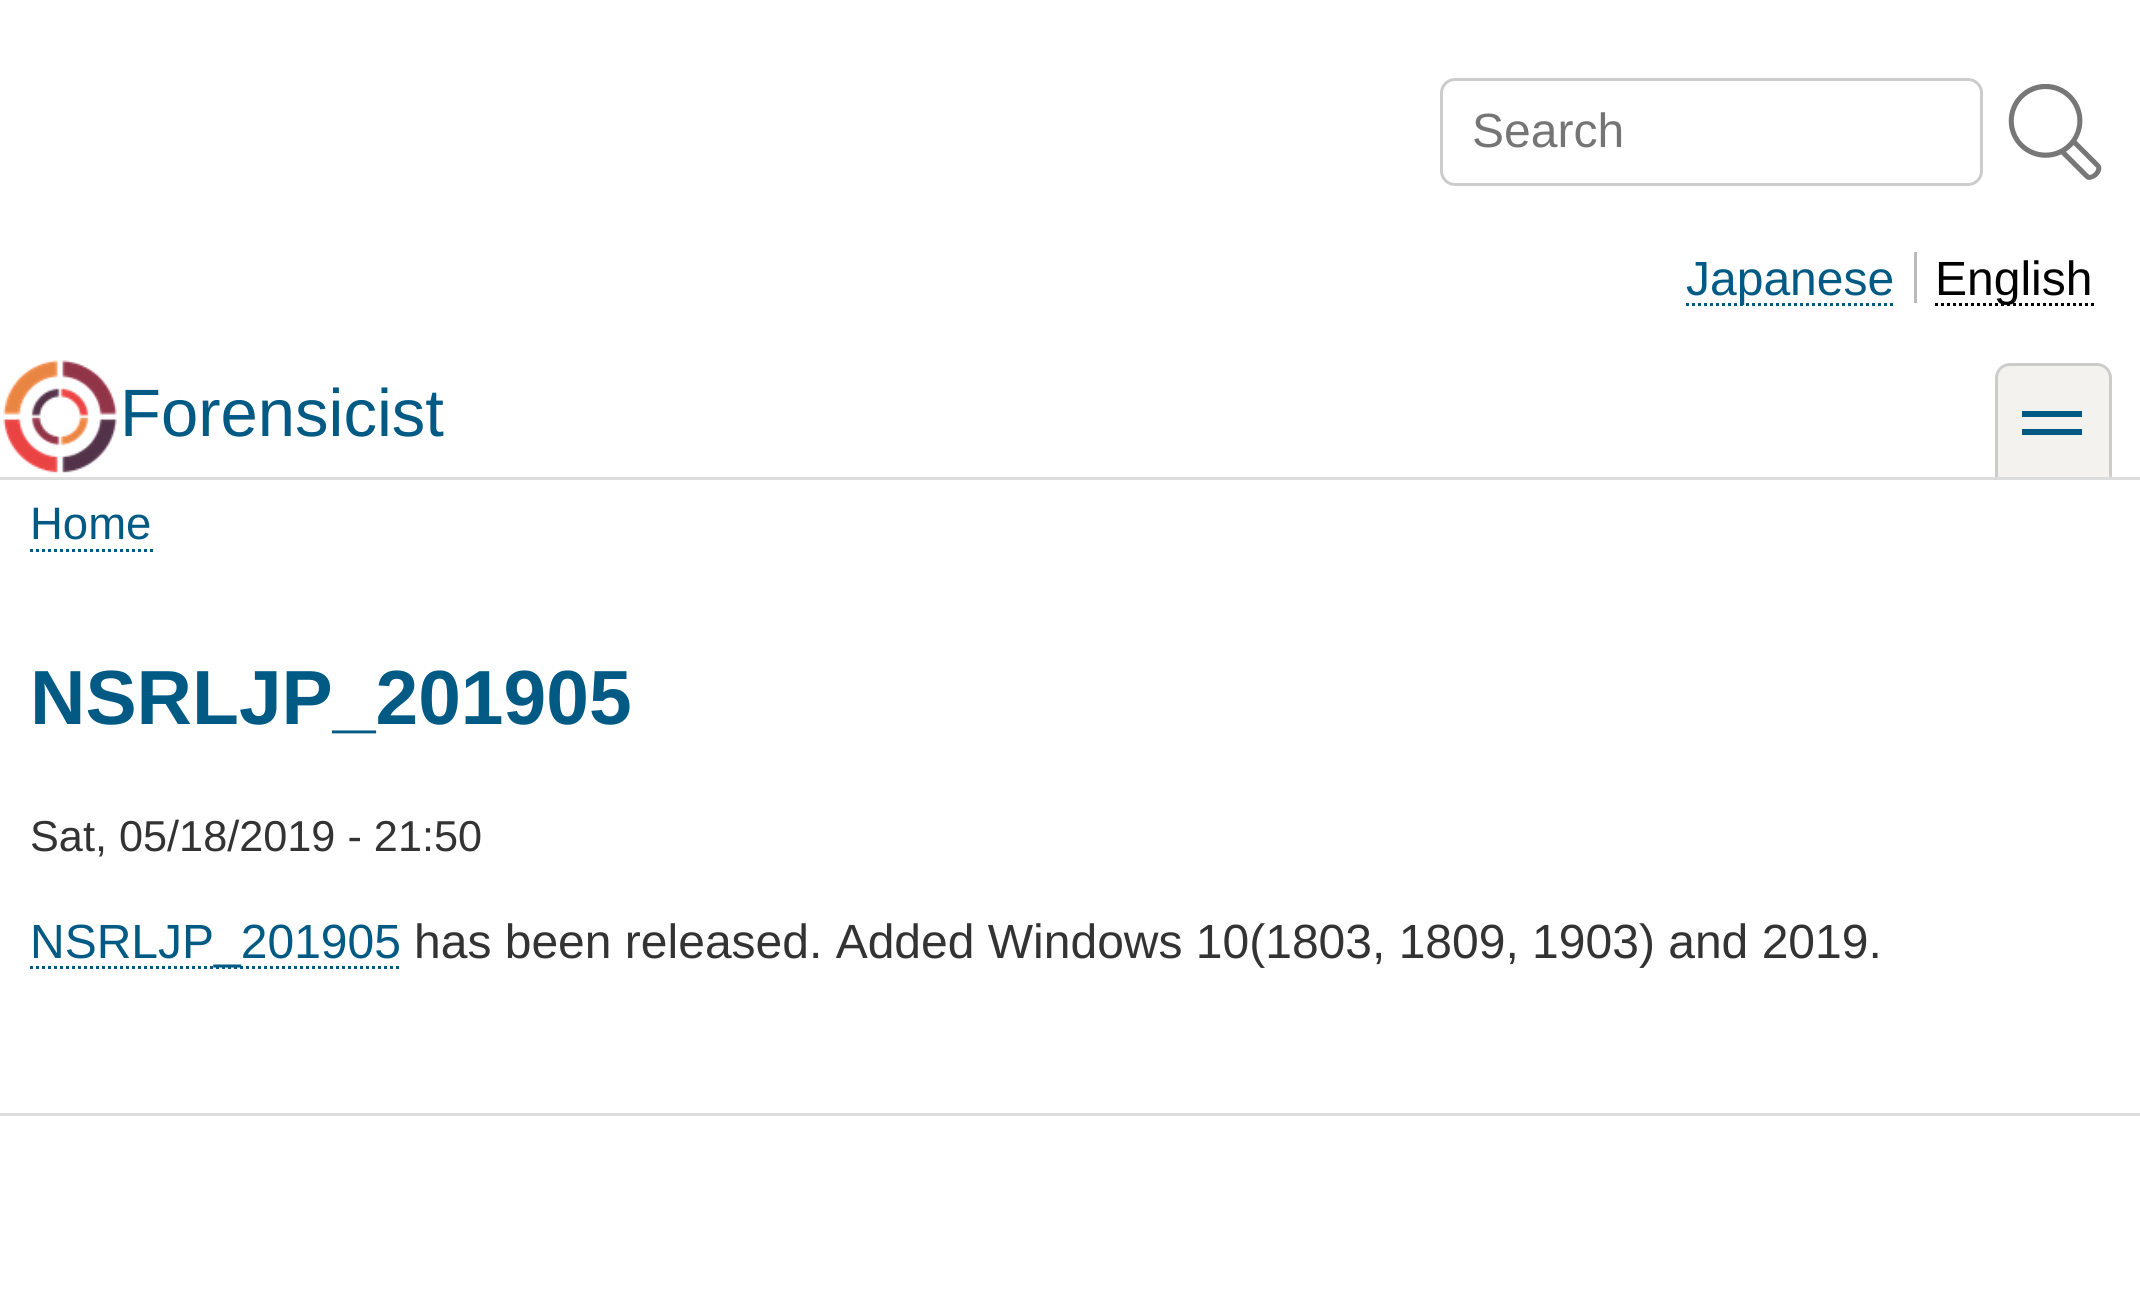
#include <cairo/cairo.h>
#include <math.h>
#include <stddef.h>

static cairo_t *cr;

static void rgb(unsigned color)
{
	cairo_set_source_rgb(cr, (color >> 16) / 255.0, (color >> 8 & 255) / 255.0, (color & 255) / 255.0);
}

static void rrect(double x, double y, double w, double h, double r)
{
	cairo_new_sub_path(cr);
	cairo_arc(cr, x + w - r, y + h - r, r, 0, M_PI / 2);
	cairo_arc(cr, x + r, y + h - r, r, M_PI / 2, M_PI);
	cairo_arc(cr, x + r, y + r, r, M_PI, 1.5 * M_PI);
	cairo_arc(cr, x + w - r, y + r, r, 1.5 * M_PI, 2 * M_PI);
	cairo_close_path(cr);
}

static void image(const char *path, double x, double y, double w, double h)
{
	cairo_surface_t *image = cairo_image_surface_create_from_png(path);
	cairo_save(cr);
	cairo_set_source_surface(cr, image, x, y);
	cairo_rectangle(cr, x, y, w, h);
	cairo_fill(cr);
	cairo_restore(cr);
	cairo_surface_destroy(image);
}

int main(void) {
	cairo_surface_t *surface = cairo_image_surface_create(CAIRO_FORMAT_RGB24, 2140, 1294);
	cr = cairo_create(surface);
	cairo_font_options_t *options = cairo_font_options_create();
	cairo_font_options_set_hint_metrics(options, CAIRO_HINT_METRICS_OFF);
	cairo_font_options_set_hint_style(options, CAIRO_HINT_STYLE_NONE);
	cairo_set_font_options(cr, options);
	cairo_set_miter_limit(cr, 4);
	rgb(0xffffff);
	cairo_paint(cr);
	rrect(1441.5, 79.5, 540, 105, 13.5);
	rgb(0xcccccc);
	cairo_set_line_width(cr, 3);
	cairo_stroke(cr);
	image("img/1.png", 2008, 84, 94, 96);
	rgb(0xbbbbbb);
	cairo_rectangle(cr, 1914, 252, 3, 51);
	cairo_fill(cr);
	cairo_new_path(cr);
	cairo_move_to(cr, 1686, 304.5);
	cairo_line_to(cr, 1893, 304.5);
	rgb(0x005a84);
	cairo_set_dash(cr, (double[]){3, 3}, 2, 0);
	cairo_stroke(cr);
	cairo_new_path(cr);
	cairo_move_to(cr, 1935, 304.5);
	cairo_line_to(cr, 2094, 304.5);
	rgb(0x000000);
	cairo_stroke(cr);
	rgb(0xdddddd);
	cairo_rectangle(cr, 0, 477, 2140, 3);
	cairo_fill(cr);
	rgb(0xf4f2ee);
	cairo_new_path(cr);
	cairo_move_to(cr, 2010, 363);
	cairo_line_to(cr, 2097, 363);
	cairo_curve_to(cr, 2105.5, 363, 2112, 369.5, 2112, 378);
	cairo_line_to(cr, 2112, 477);
	cairo_line_to(cr, 1995, 477);
	cairo_line_to(cr, 1995, 378);
	cairo_curve_to(cr, 1995, 369.5, 2001.5, 363, 2010, 363);
	cairo_close_path(cr);
	cairo_fill(cr);
	rgb(0xcccccc);
	cairo_set_fill_rule(cr, CAIRO_FILL_RULE_EVEN_ODD);
	cairo_new_path(cr);
	cairo_move_to(cr, 2010, 363);
	cairo_line_to(cr, 2097, 363);
	cairo_curve_to(cr, 2105, 363, 2112, 370, 2112, 378);
	cairo_line_to(cr, 2112, 477);
	cairo_line_to(cr, 1995, 477);
	cairo_line_to(cr, 1995, 378);
	cairo_curve_to(cr, 1995, 370, 2002, 363, 2010, 363);
	cairo_close_path(cr);
	cairo_move_to(cr, 2010, 366);
	cairo_line_to(cr, 2097, 366);
	cairo_curve_to(cr, 2104, 366, 2109, 371, 2109, 378);
	cairo_line_to(cr, 2109, 477);
	cairo_line_to(cr, 1998, 477);
	cairo_line_to(cr, 1998, 378);
	cairo_curve_to(cr, 1998, 371, 2003, 366, 2010, 366);
	cairo_close_path(cr);
	cairo_fill(cr);
	rgb(0x005a84);
	cairo_rectangle(cr, 2022, 411, 60, 6);
	cairo_fill(cr);
	cairo_rectangle(cr, 2022, 429, 60, 6);
	cairo_fill(cr);
	image("img/2.png", 3, 360, 114, 113);
	rgb(0xdddddd);
	cairo_rectangle(cr, 0, 1113, 2140, 3);
	cairo_fill(cr);
	cairo_new_path(cr);
	cairo_move_to(cr, 30, 550.5);
	cairo_line_to(cr, 153, 550.5);
	rgb(0x005a84);
	cairo_stroke(cr);
	cairo_new_path(cr);
	cairo_move_to(cr, 30, 967.5);
	cairo_line_to(cr, 402, 967.5);
	cairo_stroke(cr);
	cairo_select_font_face(cr, "Liberation Sans", CAIRO_FONT_SLANT_NORMAL, CAIRO_FONT_WEIGHT_NORMAL);
	cairo_set_font_size(cr, 48);
	rgb(0x757575);
	cairo_move_to(cr, 1472, 147);
	cairo_show_text(cr, "Search");
	rgb(0x005a84);
	cairo_move_to(cr, 1686, 295);
	cairo_show_text(cr, "Japanese");
	rgb(0x000000);
	cairo_move_to(cr, 1935, 295);
	cairo_show_text(cr, "English");
	cairo_set_font_size(cr, 67);
	rgb(0x005a84);
	cairo_move_to(cr, 120, 436);
	cairo_show_text(cr, "Forensicist");
	cairo_set_font_size(cr, 45.5);
	cairo_move_to(cr, 30, 539);
	cairo_show_text(cr, "Home");
	cairo_select_font_face(cr, "Liberation Sans", CAIRO_FONT_SLANT_NORMAL, CAIRO_FONT_WEIGHT_BOLD);
	cairo_set_font_size(cr, 76.75);
	cairo_move_to(cr, 30, 724);
	cairo_show_text(cr, "NSRLJP_201905");
	cairo_select_font_face(cr, "Liberation Sans", CAIRO_FONT_SLANT_NORMAL, CAIRO_FONT_WEIGHT_NORMAL);
	cairo_set_font_size(cr, 43.25);
	rgb(0x333333);
	cairo_move_to(cr, 30, 851);
	cairo_show_text(cr, "Sat, 05/18/2019 - 21:50");
	cairo_set_font_size(cr, 48);
	rgb(0x005a84);
	cairo_move_to(cr, 30, 958);
	cairo_show_text(cr, "NSRLJP_201905");
	rgb(0x333333);
	cairo_move_to(cr, 414, 958);
	cairo_show_text(cr, "has been released. Added Windows 10(1803, 1809, 1903) and 2019.");
	cairo_surface_write_to_png(surface, "page.png");
	cairo_font_options_destroy(options);
	cairo_destroy(cr);
	cairo_surface_destroy(surface);
	return 0;
}
